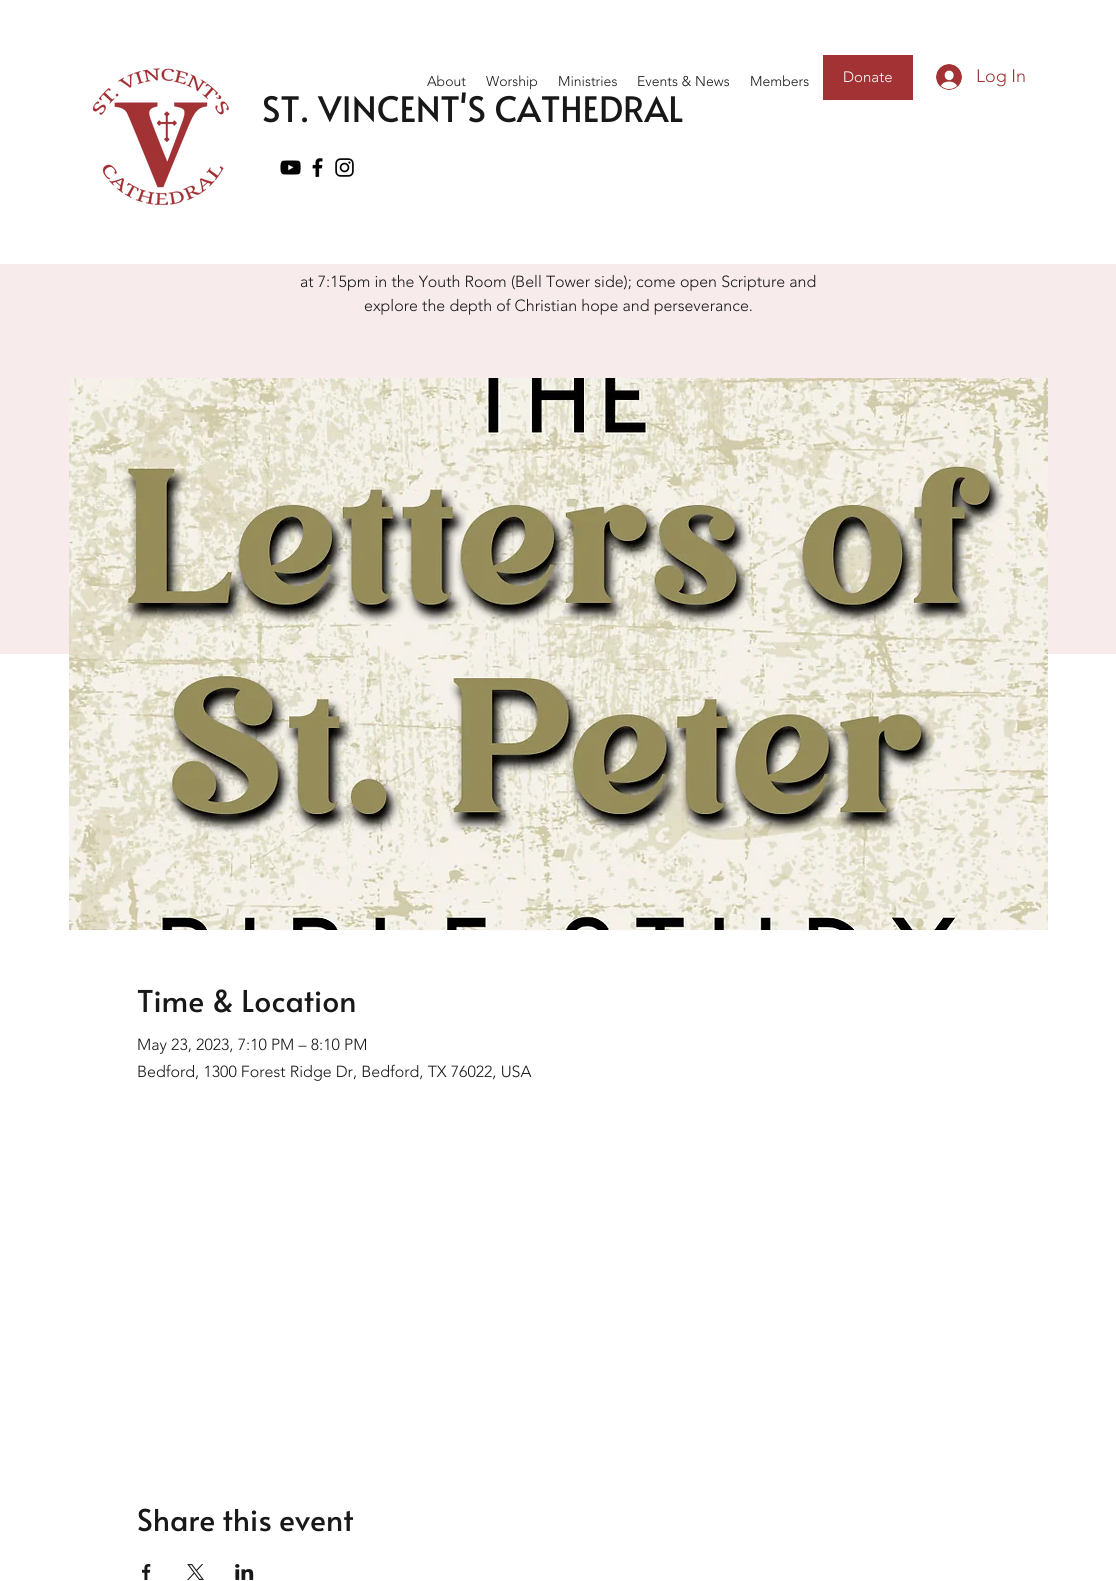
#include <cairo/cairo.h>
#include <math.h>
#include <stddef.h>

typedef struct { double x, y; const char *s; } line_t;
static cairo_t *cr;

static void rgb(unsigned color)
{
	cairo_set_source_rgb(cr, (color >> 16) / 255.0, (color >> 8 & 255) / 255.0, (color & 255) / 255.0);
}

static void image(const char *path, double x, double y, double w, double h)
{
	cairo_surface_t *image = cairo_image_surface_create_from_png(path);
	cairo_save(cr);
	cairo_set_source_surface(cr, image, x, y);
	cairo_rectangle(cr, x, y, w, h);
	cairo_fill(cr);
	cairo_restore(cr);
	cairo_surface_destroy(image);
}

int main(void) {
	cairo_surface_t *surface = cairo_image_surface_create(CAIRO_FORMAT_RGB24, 1116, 1581);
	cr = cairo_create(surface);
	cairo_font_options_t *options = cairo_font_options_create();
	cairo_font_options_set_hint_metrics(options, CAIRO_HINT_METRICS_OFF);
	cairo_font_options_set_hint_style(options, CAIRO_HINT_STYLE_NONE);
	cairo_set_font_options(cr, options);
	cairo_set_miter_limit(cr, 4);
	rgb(0xffffff);
	cairo_paint(cr);
	rgb(0xa23234);
	cairo_rectangle(cr, 823, 55, 90, 45);
	cairo_fill(cr);
	image("img/1.png", 936, 64, 26, 26);
	image("img/2.png", 92, 68, 137, 138);
	image("img/3.png", 280, 160, 21, 15);
	image("img/4.png", 312, 158, 11, 20);
	image("img/5.png", 335, 158, 19, 19);
	rgb(0xf7ebec);
	cairo_rectangle(cr, 0, 264, 1116, 390);
	cairo_fill(cr);
	image("img/6.png", 69, 378, 979, 552);
	image("img/7.png", 142, 1564, 9, 16);
	image("img/8.png", 187, 1564, 17, 16);
	image("img/9.png", 235, 1564, 19, 16);
	cairo_select_font_face(cr, "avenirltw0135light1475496 Light", CAIRO_FONT_SLANT_NORMAL, CAIRO_FONT_WEIGHT_NORMAL);
	cairo_set_font_size(cr, 14);
	rgb(0x181818);
	{
		static const line_t items[] = {
			{427, 86, "About"},
			{486, 86, "Worship"},
			{558, 86, "Ministries"},
			{637, 86, "Events & News"},
			{750, 86, "Members"},
		};
		for (size_t i = 0; i < sizeof items / sizeof *items; i++) {
			cairo_move_to(cr, items[i].x, items[i].y);
			cairo_show_text(cr, items[i].s);
		}
	}
	cairo_set_font_size(cr, 15);
	rgb(0xffffff);
	cairo_move_to(cr, 843, 82);
	cairo_show_text(cr, "Donate");
	cairo_set_font_size(cr, 18);
	rgb(0xa23234);
	cairo_move_to(cr, 976, 82);
	cairo_show_text(cr, "Log In");
	cairo_select_font_face(cr, "Alata", CAIRO_FONT_SLANT_NORMAL, CAIRO_FONT_WEIGHT_NORMAL);
	cairo_set_font_size(cr, 35);
	rgb(0x181818);
	cairo_move_to(cr, 262, 122);
	cairo_show_text(cr, "ST. VINCENT'S CATHEDRAL");
	cairo_select_font_face(cr, "avenirltw0135light1475496 Light", CAIRO_FONT_SLANT_NORMAL, CAIRO_FONT_WEIGHT_NORMAL);
	cairo_set_font_size(cr, 16);
	cairo_move_to(cr, 300, 287);
	cairo_show_text(cr, "at 7:15pm in the Youth Room (Bell Tower side); come open Scripture and");
	cairo_move_to(cr, 364, 311);
	cairo_show_text(cr, "explore the depth of Christian hope and perseverance.");
	cairo_select_font_face(cr, "Alata", CAIRO_FONT_SLANT_NORMAL, CAIRO_FONT_WEIGHT_NORMAL);
	cairo_set_font_size(cr, 30);
	cairo_move_to(cr, 137, 1012);
	cairo_show_text(cr, "Time & Location");
	cairo_select_font_face(cr, "avenirltw0135light1475496 Light", CAIRO_FONT_SLANT_NORMAL, CAIRO_FONT_WEIGHT_NORMAL);
	cairo_set_font_size(cr, 16);
	cairo_move_to(cr, 137, 1050);
	cairo_show_text(cr, "May 23, 2023, 7:10 PM – 8:10 PM");
	cairo_move_to(cr, 137, 1077);
	cairo_show_text(cr, "Bedford, 1300 Forest Ridge Dr, Bedford, TX 76022, USA");
	cairo_select_font_face(cr, "Alata", CAIRO_FONT_SLANT_NORMAL, CAIRO_FONT_WEIGHT_NORMAL);
	cairo_set_font_size(cr, 30);
	cairo_move_to(cr, 137, 1531);
	cairo_show_text(cr, "Share this event");
	cairo_surface_write_to_png(surface, "page.png");
	cairo_font_options_destroy(options);
	cairo_destroy(cr);
	cairo_surface_destroy(surface);
	return 0;
}
